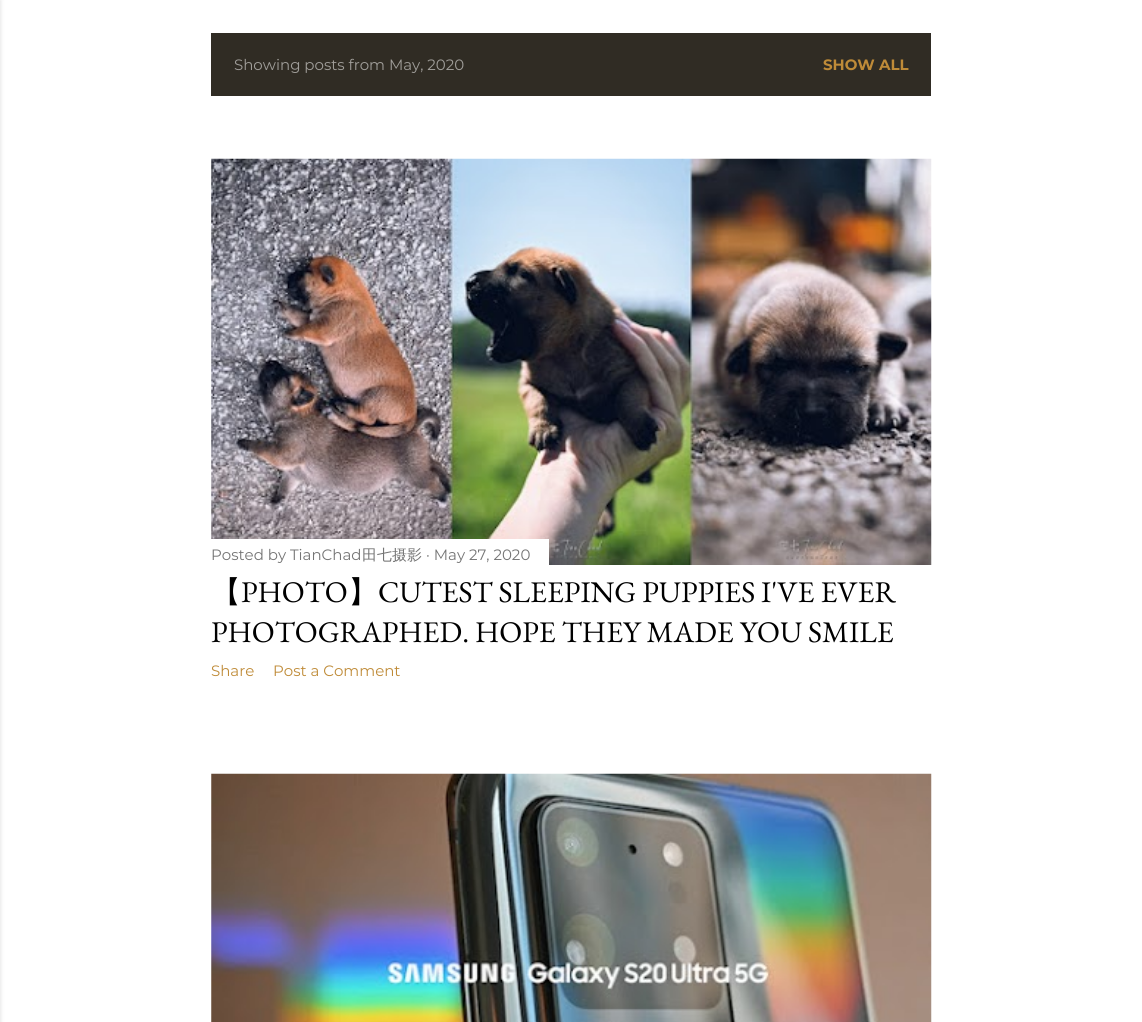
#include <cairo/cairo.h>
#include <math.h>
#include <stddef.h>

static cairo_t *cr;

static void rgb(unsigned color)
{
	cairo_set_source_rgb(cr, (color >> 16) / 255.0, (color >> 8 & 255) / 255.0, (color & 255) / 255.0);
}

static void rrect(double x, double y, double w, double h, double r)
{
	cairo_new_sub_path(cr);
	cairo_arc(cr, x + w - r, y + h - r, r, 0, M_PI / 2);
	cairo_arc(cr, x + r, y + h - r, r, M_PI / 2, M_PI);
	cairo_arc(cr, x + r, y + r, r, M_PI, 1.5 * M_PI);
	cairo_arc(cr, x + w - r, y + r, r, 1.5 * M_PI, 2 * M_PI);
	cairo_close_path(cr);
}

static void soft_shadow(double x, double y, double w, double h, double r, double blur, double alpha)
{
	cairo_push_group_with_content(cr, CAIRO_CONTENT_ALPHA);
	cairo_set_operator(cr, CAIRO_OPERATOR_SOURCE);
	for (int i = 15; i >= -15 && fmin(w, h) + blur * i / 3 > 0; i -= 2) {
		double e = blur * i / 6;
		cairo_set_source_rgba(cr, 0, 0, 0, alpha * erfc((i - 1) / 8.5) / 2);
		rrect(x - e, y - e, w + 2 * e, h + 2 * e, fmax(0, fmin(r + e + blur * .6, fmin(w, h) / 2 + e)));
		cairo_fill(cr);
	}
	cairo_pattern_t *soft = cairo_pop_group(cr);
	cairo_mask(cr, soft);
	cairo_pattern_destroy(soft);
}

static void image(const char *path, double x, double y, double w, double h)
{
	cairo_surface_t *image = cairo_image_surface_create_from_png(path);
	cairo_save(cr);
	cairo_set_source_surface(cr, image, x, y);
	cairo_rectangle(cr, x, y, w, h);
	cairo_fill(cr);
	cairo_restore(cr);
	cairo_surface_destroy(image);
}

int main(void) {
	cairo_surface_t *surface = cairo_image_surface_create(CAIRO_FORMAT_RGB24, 1142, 1022);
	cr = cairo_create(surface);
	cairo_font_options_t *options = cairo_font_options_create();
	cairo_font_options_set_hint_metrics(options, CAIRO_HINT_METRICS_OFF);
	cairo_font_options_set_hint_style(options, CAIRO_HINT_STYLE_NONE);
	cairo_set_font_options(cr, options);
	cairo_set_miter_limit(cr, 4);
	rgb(0xffffff);
	cairo_paint(cr);
	rgb(0x000000);
	soft_shadow(-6, 0, 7, 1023, 0, 2, 0.1);
	rgb(0x302c24);
	cairo_rectangle(cr, 211, 33, 720, 63);
	cairo_fill(cr);
	image("img/1.png", 211, 158, 721, 407);
	rgb(0xffffff);
	cairo_rectangle(cr, 211, 539, 338, 26);
	cairo_fill(cr);
	image("img/2.png", 211, 773, 721, 249);
	cairo_select_font_face(cr, "Montserrat", CAIRO_FONT_SLANT_NORMAL, CAIRO_FONT_WEIGHT_NORMAL);
	cairo_set_font_size(cr, 15);
	rgb(0xa09e9a);
	cairo_move_to(cr, 234, 70);
	cairo_show_text(cr, "Showing posts from May, 2020");
	cairo_select_font_face(cr, "Montserrat", CAIRO_FONT_SLANT_NORMAL, CAIRO_FONT_WEIGHT_BOLD);
	rgb(0xbf8b38);
	cairo_move_to(cr, 823, 70);
	cairo_show_text(cr, "SHOW ALL");
	cairo_select_font_face(cr, "Montserrat", CAIRO_FONT_SLANT_NORMAL, CAIRO_FONT_WEIGHT_NORMAL);
	rgb(0x757575);
	cairo_move_to(cr, 211, 560);
	cairo_show_text(cr, "Posted by TianChad");
	cairo_select_font_face(cr, "WenQuanYi Zen Hei Medium", CAIRO_FONT_SLANT_NORMAL, CAIRO_FONT_WEIGHT_NORMAL);
	cairo_move_to(cr, 362, 560);
	cairo_show_text(cr, "田七摄影");
	cairo_select_font_face(cr, "Montserrat", CAIRO_FONT_SLANT_NORMAL, CAIRO_FONT_WEIGHT_NORMAL);
	cairo_move_to(cr, 426, 560);
	cairo_show_text(cr, "· May 27, 2020");
	cairo_select_font_face(cr, "WenQuanYi Zen Hei Medium", CAIRO_FONT_SLANT_NORMAL, CAIRO_FONT_WEIGHT_NORMAL);
	cairo_set_font_size(cr, 30);
	rgb(0x000000);
	cairo_move_to(cr, 211, 602);
	cairo_show_text(cr, "【");
	cairo_select_font_face(cr, "EB Garamond", CAIRO_FONT_SLANT_NORMAL, CAIRO_FONT_WEIGHT_NORMAL);
	cairo_move_to(cr, 241, 602);
	cairo_show_text(cr, "PHOTO");
	cairo_select_font_face(cr, "WenQuanYi Zen Hei Medium", CAIRO_FONT_SLANT_NORMAL, CAIRO_FONT_WEIGHT_NORMAL);
	cairo_move_to(cr, 348, 602);
	cairo_show_text(cr, "】");
	cairo_select_font_face(cr, "EB Garamond", CAIRO_FONT_SLANT_NORMAL, CAIRO_FONT_WEIGHT_NORMAL);
	cairo_move_to(cr, 378, 602);
	cairo_show_text(cr, "CUTEST SLEEPING PUPPIES I'VE EVER");
	cairo_move_to(cr, 211, 642);
	cairo_show_text(cr, "PHOTOGRAPHED. HOPE THEY MADE YOU SMILE");
	cairo_select_font_face(cr, "Montserrat", CAIRO_FONT_SLANT_NORMAL, CAIRO_FONT_WEIGHT_NORMAL);
	cairo_set_font_size(cr, 15);
	rgb(0xbf8b38);
	cairo_move_to(cr, 211, 676);
	cairo_show_text(cr, "Share");
	cairo_move_to(cr, 273, 676);
	cairo_show_text(cr, "Post a Comment");
	cairo_surface_write_to_png(surface, "page.png");
	cairo_font_options_destroy(options);
	cairo_destroy(cr);
	cairo_surface_destroy(surface);
	return 0;
}
